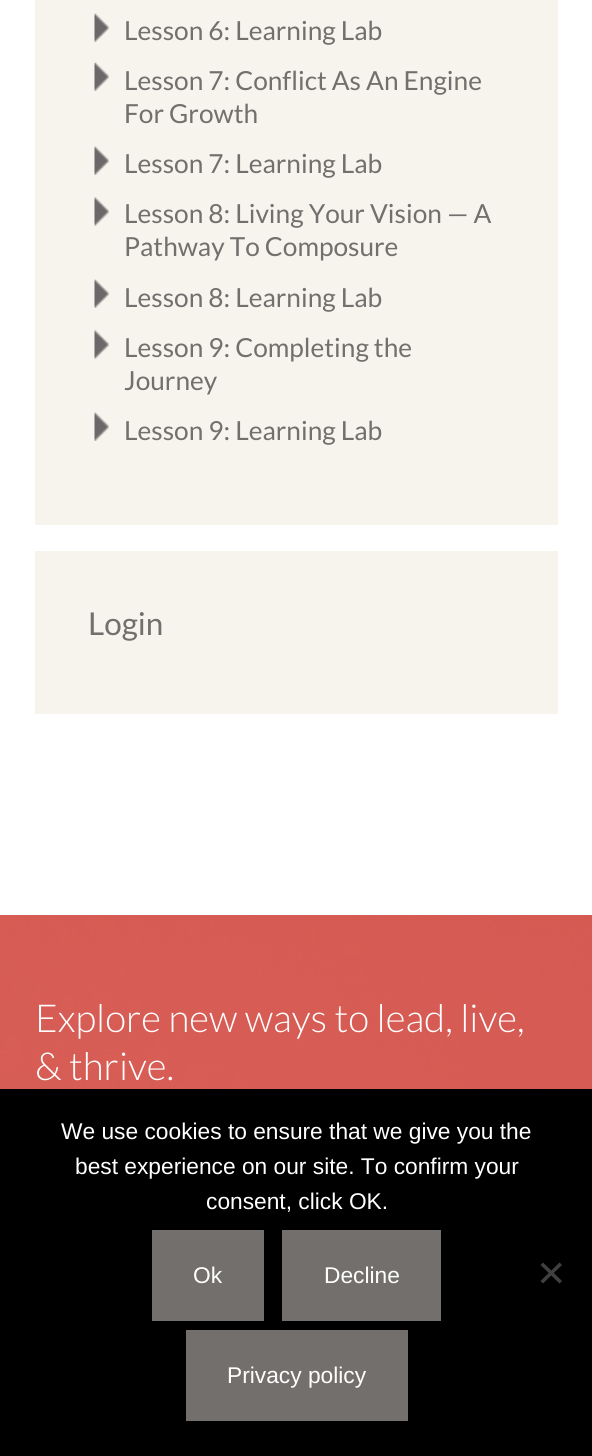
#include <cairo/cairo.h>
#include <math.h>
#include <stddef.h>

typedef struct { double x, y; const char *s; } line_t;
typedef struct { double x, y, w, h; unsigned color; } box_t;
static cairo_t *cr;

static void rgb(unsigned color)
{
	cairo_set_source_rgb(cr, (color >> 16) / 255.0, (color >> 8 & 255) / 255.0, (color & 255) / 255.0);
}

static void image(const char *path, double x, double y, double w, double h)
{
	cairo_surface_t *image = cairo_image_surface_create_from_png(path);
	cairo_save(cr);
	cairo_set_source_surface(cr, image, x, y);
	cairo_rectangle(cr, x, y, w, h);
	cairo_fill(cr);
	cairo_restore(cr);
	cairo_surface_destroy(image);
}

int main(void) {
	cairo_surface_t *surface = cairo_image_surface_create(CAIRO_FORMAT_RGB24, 592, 1456);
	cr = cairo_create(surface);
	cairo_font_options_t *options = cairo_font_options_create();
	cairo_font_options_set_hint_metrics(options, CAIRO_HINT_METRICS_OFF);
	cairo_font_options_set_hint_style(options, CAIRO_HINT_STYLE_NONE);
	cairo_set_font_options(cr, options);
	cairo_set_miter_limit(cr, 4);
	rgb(0xffffff);
	cairo_paint(cr);
	rgb(0xf7f3ed);
	cairo_rectangle(cr, 35, 0, 523, 525);
	cairo_fill(cr);
	image("img/1.png", 94, 13, 15, 29);
	image("img/1.png", 94, 62, 15, 29);
	image("img/1.png", 94, 146, 15, 29);
	image("img/2.png", 94, 197, 15, 29);
	image("img/1.png", 94, 279, 15, 29);
	image("img/2.png", 94, 330, 15, 29);
	image("img/1.png", 94, 412, 15, 29);
	cairo_rectangle(cr, 35, 551, 523, 163);
	cairo_fill(cr);
	image("img/3.png", 0, 915, 592, 174);
	{
		static const box_t items[] = {
			{0, 1089, 592, 367, 0x000000},
			{152, 1230, 112, 91, 0x736f6c},
			{282, 1230, 159, 91, 0x736f6c},
			{186, 1330, 222, 91, 0x736f6c},
		};
		for (size_t i = 0; i < sizeof items / sizeof *items; i++) {
			rgb(items[i].color);
			cairo_rectangle(cr, items[i].x, items[i].y, items[i].w, items[i].h);
			cairo_fill(cr);
		}
	}
	rgb(0x404040);
	cairo_new_path(cr);
	cairo_move_to(cr, 559.5, 1262.5);
	cairo_line_to(cr, 562, 1265);
	cairo_line_to(cr, 543, 1283.5);
	cairo_line_to(cr, 540.5, 1281);
	cairo_close_path(cr);
	cairo_fill(cr);
	cairo_new_path(cr);
	cairo_move_to(cr, 540.5, 1265);
	cairo_line_to(cr, 543, 1262.5);
	cairo_line_to(cr, 562, 1281);
	cairo_line_to(cr, 559.5, 1283.5);
	cairo_close_path(cr);
	cairo_fill(cr);
	cairo_select_font_face(cr, "Lato", CAIRO_FONT_SLANT_NORMAL, CAIRO_FONT_WEIGHT_NORMAL);
	cairo_set_font_size(cr, 26.25);
	rgb(0x726f6c);
	{
		static const line_t items[] = {
			{124, 40, "Lesson 6: Learning Lab"},
			{124, 90, "Lesson 7: Conflict As An Engine"},
			{124, 123, "For Growth"},
			{124, 173, "Lesson 7: Learning Lab"},
			{124, 223, "Lesson 8: Living Your Vision — A"},
			{124, 256, "Pathway To Composure"},
			{124, 307, "Lesson 8: Learning Lab"},
			{124, 357, "Lesson 9: Completing the"},
			{124, 390, "Journey"},
			{124, 440, "Lesson 9: Learning Lab"},
		};
		for (size_t i = 0; i < sizeof items / sizeof *items; i++) {
			cairo_move_to(cr, items[i].x, items[i].y);
			cairo_show_text(cr, items[i].s);
		}
	}
	cairo_set_font_size(cr, 31.5);
	cairo_move_to(cr, 88, 635);
	cairo_show_text(cr, "Login");
	cairo_select_font_face(cr, "Lato Light", CAIRO_FONT_SLANT_NORMAL, CAIRO_FONT_WEIGHT_NORMAL);
	cairo_set_font_size(cr, 38.5);
	rgb(0xffffff);
	cairo_move_to(cr, 35, 1032);
	cairo_show_text(cr, "Explore new ways to lead, live,");
	cairo_move_to(cr, 35, 1080);
	cairo_show_text(cr, "& thrive.");
	cairo_select_font_face(cr, "Liberation Sans", CAIRO_FONT_SLANT_NORMAL, CAIRO_FONT_WEIGHT_NORMAL);
	cairo_set_font_size(cr, 22.75);
	{
		static const line_t items[] = {
			{61, 1139, "We use cookies to ensure that we give you the"},
			{75, 1174, "best experience on our site. To confirm your"},
			{206, 1209, "consent, click OK."},
			{193, 1283, "Ok"},
			{324, 1283, "Decline"},
			{227, 1383, "Privacy policy"},
		};
		for (size_t i = 0; i < sizeof items / sizeof *items; i++) {
			cairo_move_to(cr, items[i].x, items[i].y);
			cairo_show_text(cr, items[i].s);
		}
	}
	cairo_surface_write_to_png(surface, "page.png");
	cairo_font_options_destroy(options);
	cairo_destroy(cr);
	cairo_surface_destroy(surface);
	return 0;
}
